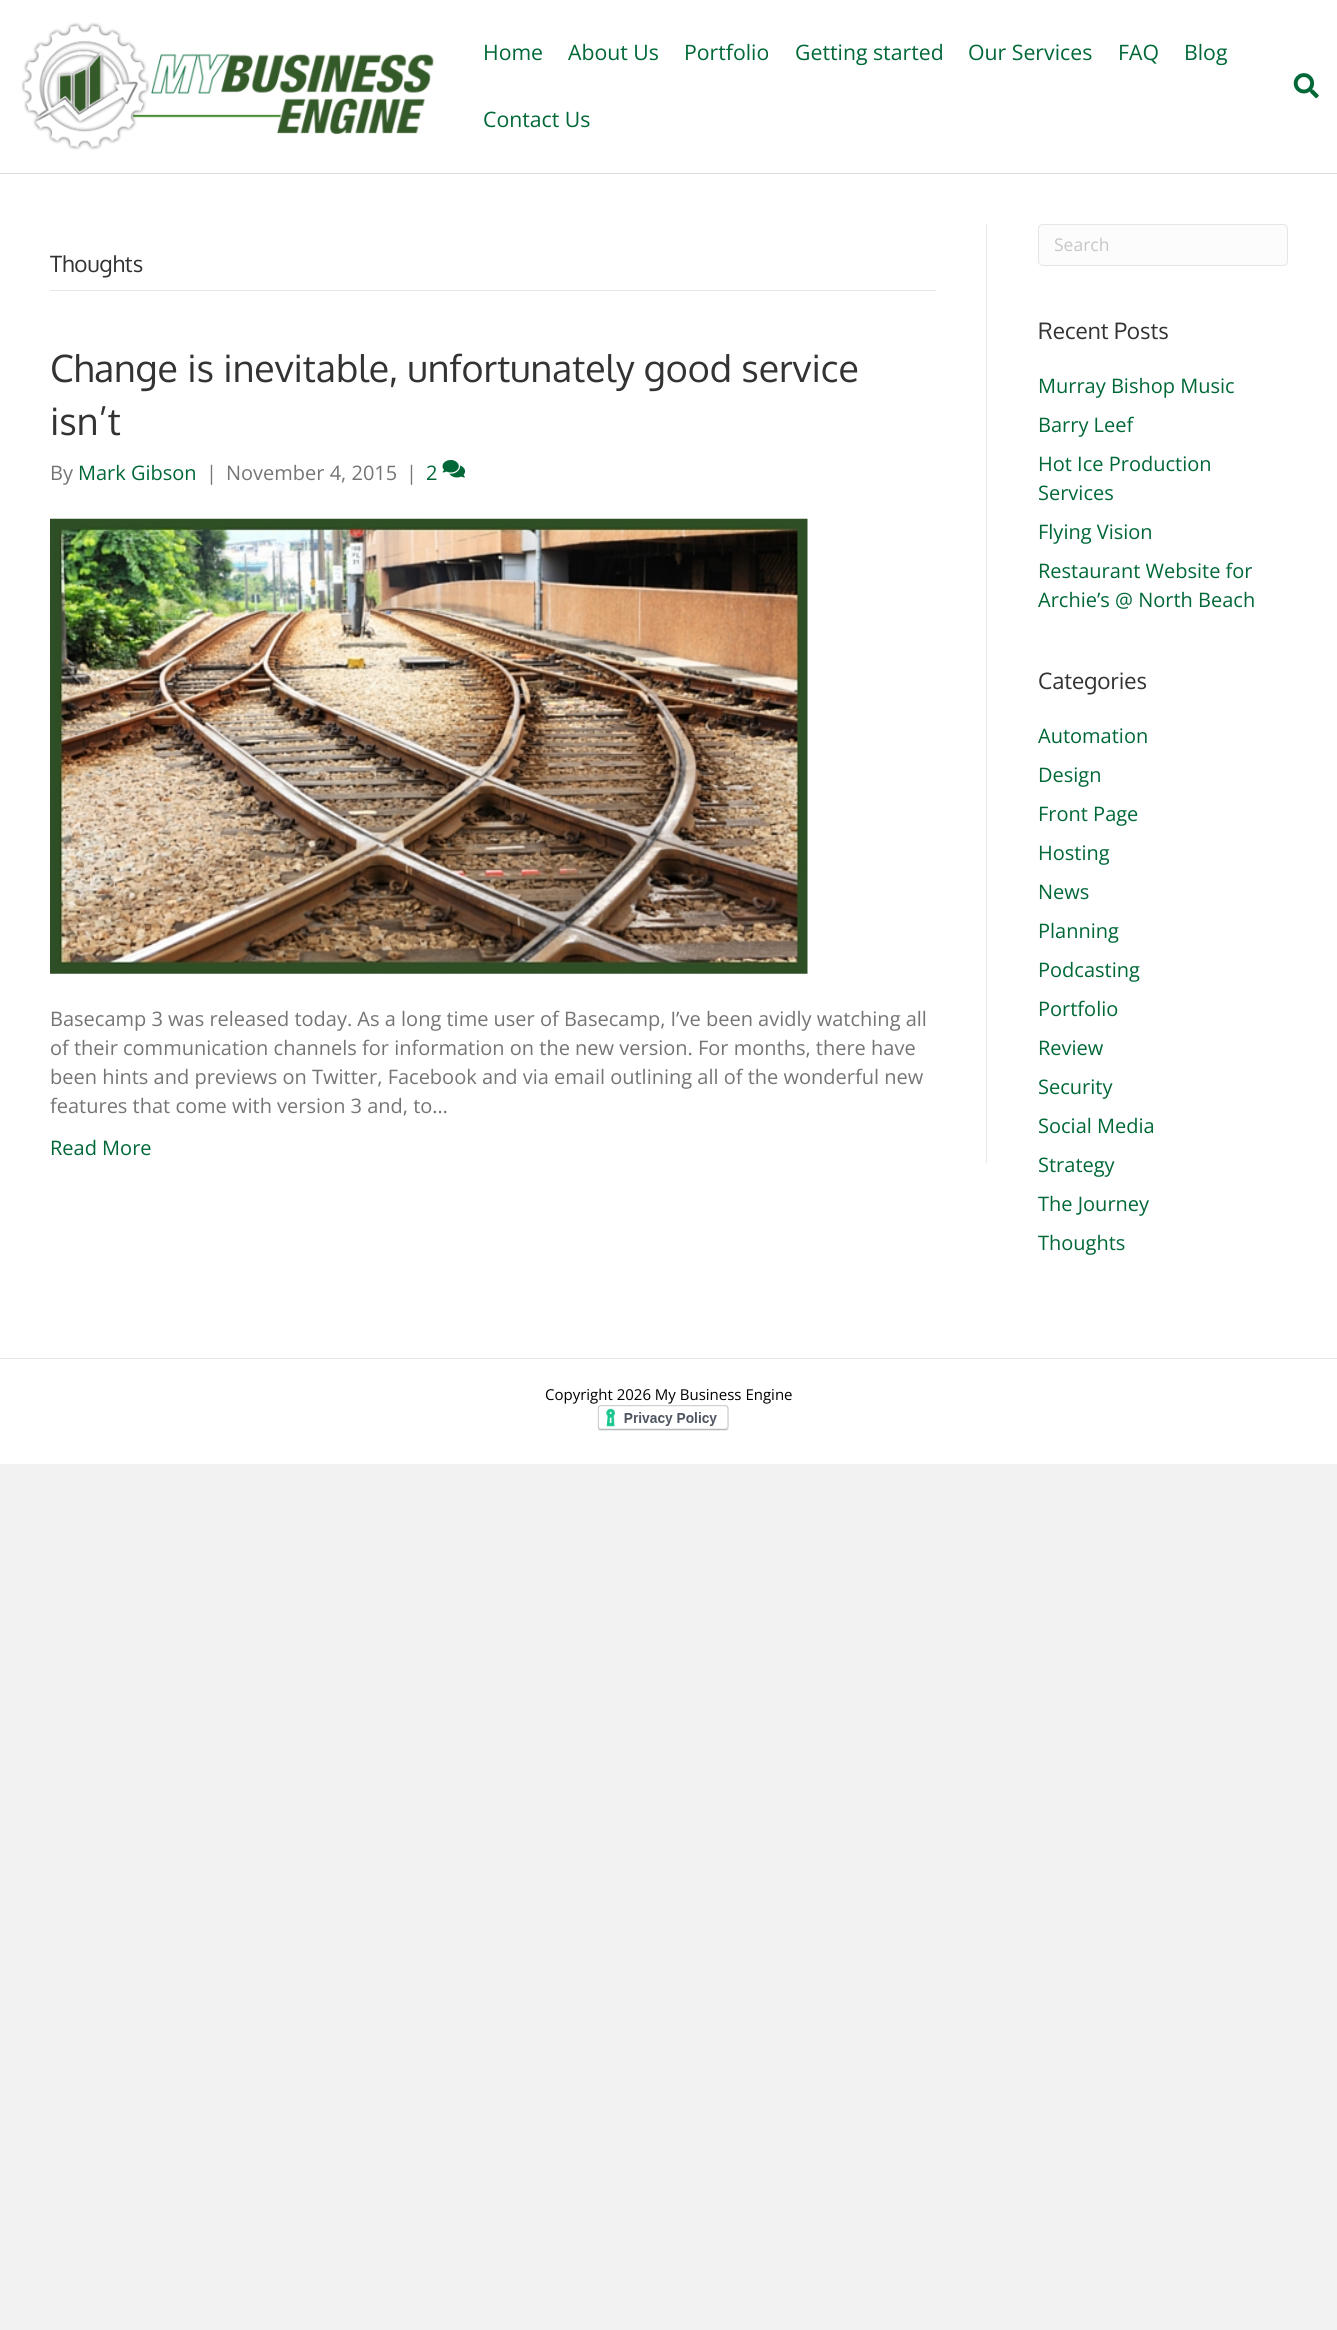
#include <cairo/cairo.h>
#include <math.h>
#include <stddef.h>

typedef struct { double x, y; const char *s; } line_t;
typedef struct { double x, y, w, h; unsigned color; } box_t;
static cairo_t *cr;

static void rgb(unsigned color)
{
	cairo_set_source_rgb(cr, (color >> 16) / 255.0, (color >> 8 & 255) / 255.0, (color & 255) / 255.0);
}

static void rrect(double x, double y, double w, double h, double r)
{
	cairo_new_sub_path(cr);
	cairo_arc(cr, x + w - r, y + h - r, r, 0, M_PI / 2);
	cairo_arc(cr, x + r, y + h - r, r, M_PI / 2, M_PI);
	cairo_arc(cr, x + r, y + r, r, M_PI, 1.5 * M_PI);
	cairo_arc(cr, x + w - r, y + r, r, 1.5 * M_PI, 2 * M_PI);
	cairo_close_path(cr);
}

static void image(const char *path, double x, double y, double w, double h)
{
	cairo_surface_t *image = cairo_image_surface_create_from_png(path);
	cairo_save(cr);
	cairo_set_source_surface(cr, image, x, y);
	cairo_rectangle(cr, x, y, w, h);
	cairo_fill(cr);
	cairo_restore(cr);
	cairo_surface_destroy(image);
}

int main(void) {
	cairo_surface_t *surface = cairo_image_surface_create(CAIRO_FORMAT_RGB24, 1337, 2330);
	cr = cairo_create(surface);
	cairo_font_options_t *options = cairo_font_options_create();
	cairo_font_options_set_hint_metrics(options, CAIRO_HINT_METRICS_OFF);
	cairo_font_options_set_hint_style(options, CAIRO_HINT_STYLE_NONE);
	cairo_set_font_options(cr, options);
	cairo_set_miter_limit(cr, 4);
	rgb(0xf2f2f2);
	cairo_paint(cr);
	rgb(0xffffff);
	cairo_rectangle(cr, 0, 0, 1337, 173);
	cairo_fill(cr);
	rgb(0xdedede);
	cairo_rectangle(cr, 0, 173, 1337, 1);
	cairo_fill(cr);
	image("img/1.png", 21, 22, 413, 128);
	image("img/2.png", 1293, 73, 26, 26);
	{
		static const box_t items[] = {
			{0, 174, 1337, 1184, 0xffffff},
			{986, 224, 1, 939, 0xe6e6e6},
			{50, 290, 886, 1, 0xe6e6e6},
		};
		for (size_t i = 0; i < sizeof items / sizeof *items; i++) {
			rgb(items[i].color);
			cairo_rectangle(cr, items[i].x, items[i].y, items[i].w, items[i].h);
			cairo_fill(cr);
		}
	}
	image("img/3.png", 442, 460, 23, 18);
	image("img/4.png", 50, 518, 758, 456);
	rgb(0xfcfcfc);
	rrect(1038.5, 224.5, 249, 41, 4.5);
	cairo_fill_preserve(cr);
	rgb(0xe6e6e6);
	cairo_set_line_width(cr, 1);
	cairo_stroke(cr);
	rgb(0xffffff);
	cairo_rectangle(cr, 0, 1359, 1337, 105);
	cairo_fill(cr);
	rgb(0xe6e6e6);
	cairo_rectangle(cr, 0, 1358, 1337, 1);
	cairo_fill(cr);
	image("img/5.png", 597, 1405, 132, 26);
	cairo_select_font_face(cr, "Open Sans", CAIRO_FONT_SLANT_NORMAL, CAIRO_FONT_WEIGHT_NORMAL);
	cairo_set_font_size(cr, 21.25);
	rgb(0x006837);
	{
		static const line_t items[] = {
			{483, 60, "Home"},
			{568, 60, "About Us"},
			{684, 60, "Portfolio"},
			{795, 60, "Getting started"},
			{968, 60, "Our Services"},
			{1118, 60, "FAQ"},
			{1184, 60, "Blog"},
			{483, 127, "Contact Us"},
		};
		for (size_t i = 0; i < sizeof items / sizeof *items; i++) {
			cairo_move_to(cr, items[i].x, items[i].y);
			cairo_show_text(cr, items[i].s);
		}
	}
	cairo_select_font_face(cr, "Oxygen", CAIRO_FONT_SLANT_NORMAL, CAIRO_FONT_WEIGHT_NORMAL);
	cairo_set_font_size(cr, 22.5);
	rgb(0x333333);
	cairo_move_to(cr, 50, 272);
	cairo_show_text(cr, "Thoughts");
	cairo_set_font_size(cr, 37.5);
	cairo_move_to(cr, 50, 382);
	cairo_show_text(cr, "Change is inevitable, unfortunately good service");
	cairo_move_to(cr, 50, 435);
	cairo_show_text(cr, "isn’t");
	cairo_select_font_face(cr, "Open Sans", CAIRO_FONT_SLANT_NORMAL, CAIRO_FONT_WEIGHT_NORMAL);
	cairo_set_font_size(cr, 20);
	rgb(0x757575);
	cairo_move_to(cr, 50, 480);
	cairo_show_text(cr, "By");
	rgb(0x006837);
	cairo_move_to(cr, 78, 480);
	cairo_show_text(cr, "Mark Gibson");
	rgb(0x757575);
	{
		static const line_t items[] = {
			{206, 480, "|"},
			{226, 480, "November 4, 2015"},
			{406, 480, "|"},
		};
		for (size_t i = 0; i < sizeof items / sizeof *items; i++) {
			cairo_move_to(cr, items[i].x, items[i].y);
			cairo_show_text(cr, items[i].s);
		}
	}
	rgb(0x006837);
	cairo_move_to(cr, 426, 480);
	cairo_show_text(cr, "2");
	rgb(0x757575);
	{
		static const line_t items[] = {
			{50, 1026, "Basecamp 3 was released today. As a long time user of Basecamp, I’ve been avidly watching all"},
			{50, 1055, "of their communication channels for information on the new version. For months, there have"},
			{50, 1084, "been hints and previews on Twitter, Facebook and via email outlining all of the wonderful new"},
			{50, 1113, "features that come with version 3 and, to…"},
		};
		for (size_t i = 0; i < sizeof items / sizeof *items; i++) {
			cairo_move_to(cr, items[i].x, items[i].y);
			cairo_show_text(cr, items[i].s);
		}
	}
	rgb(0x006837);
	cairo_move_to(cr, 50, 1155);
	cairo_show_text(cr, "Read More");
	cairo_set_font_size(cr, 17.5);
	rgb(0xc6c6c6);
	cairo_move_to(cr, 1054, 251);
	cairo_show_text(cr, "Search");
	cairo_select_font_face(cr, "Oxygen", CAIRO_FONT_SLANT_NORMAL, CAIRO_FONT_WEIGHT_NORMAL);
	cairo_set_font_size(cr, 22.5);
	rgb(0x333333);
	cairo_move_to(cr, 1038, 339);
	cairo_show_text(cr, "Recent Posts");
	cairo_select_font_face(cr, "Open Sans", CAIRO_FONT_SLANT_NORMAL, CAIRO_FONT_WEIGHT_NORMAL);
	cairo_set_font_size(cr, 20);
	rgb(0x006837);
	{
		static const line_t items[] = {
			{1038, 393, "Murray Bishop Music"},
			{1038, 432, "Barry Leef"},
			{1038, 471, "Hot Ice Production"},
			{1038, 500, "Services"},
			{1038, 539, "Flying Vision"},
			{1038, 578, "Restaurant Website for"},
			{1038, 607, "Archie’s @ North Beach"},
		};
		for (size_t i = 0; i < sizeof items / sizeof *items; i++) {
			cairo_move_to(cr, items[i].x, items[i].y);
			cairo_show_text(cr, items[i].s);
		}
	}
	cairo_select_font_face(cr, "Oxygen", CAIRO_FONT_SLANT_NORMAL, CAIRO_FONT_WEIGHT_NORMAL);
	cairo_set_font_size(cr, 22.5);
	rgb(0x333333);
	cairo_move_to(cr, 1038, 689);
	cairo_show_text(cr, "Categories");
	cairo_select_font_face(cr, "Open Sans", CAIRO_FONT_SLANT_NORMAL, CAIRO_FONT_WEIGHT_NORMAL);
	cairo_set_font_size(cr, 20);
	rgb(0x006837);
	{
		static const line_t items[] = {
			{1038, 743, "Automation"},
			{1038, 782, "Design"},
			{1038, 821, "Front Page"},
			{1038, 860, "Hosting"},
			{1038, 899, "News"},
			{1038, 938, "Planning"},
			{1038, 977, "Podcasting"},
			{1038, 1016, "Portfolio"},
			{1038, 1055, "Review"},
			{1038, 1094, "Security"},
			{1038, 1133, "Social Media"},
			{1038, 1172, "Strategy"},
			{1038, 1211, "The Journey"},
			{1038, 1250, "Thoughts"},
		};
		for (size_t i = 0; i < sizeof items / sizeof *items; i++) {
			cairo_move_to(cr, items[i].x, items[i].y);
			cairo_show_text(cr, items[i].s);
		}
	}
	cairo_set_font_size(cr, 15);
	rgb(0x000000);
	cairo_move_to(cr, 545, 1400);
	cairo_show_text(cr, "Copyright 2026 My Business Engine");
	cairo_surface_write_to_png(surface, "page.png");
	cairo_font_options_destroy(options);
	cairo_destroy(cr);
	cairo_surface_destroy(surface);
	return 0;
}
